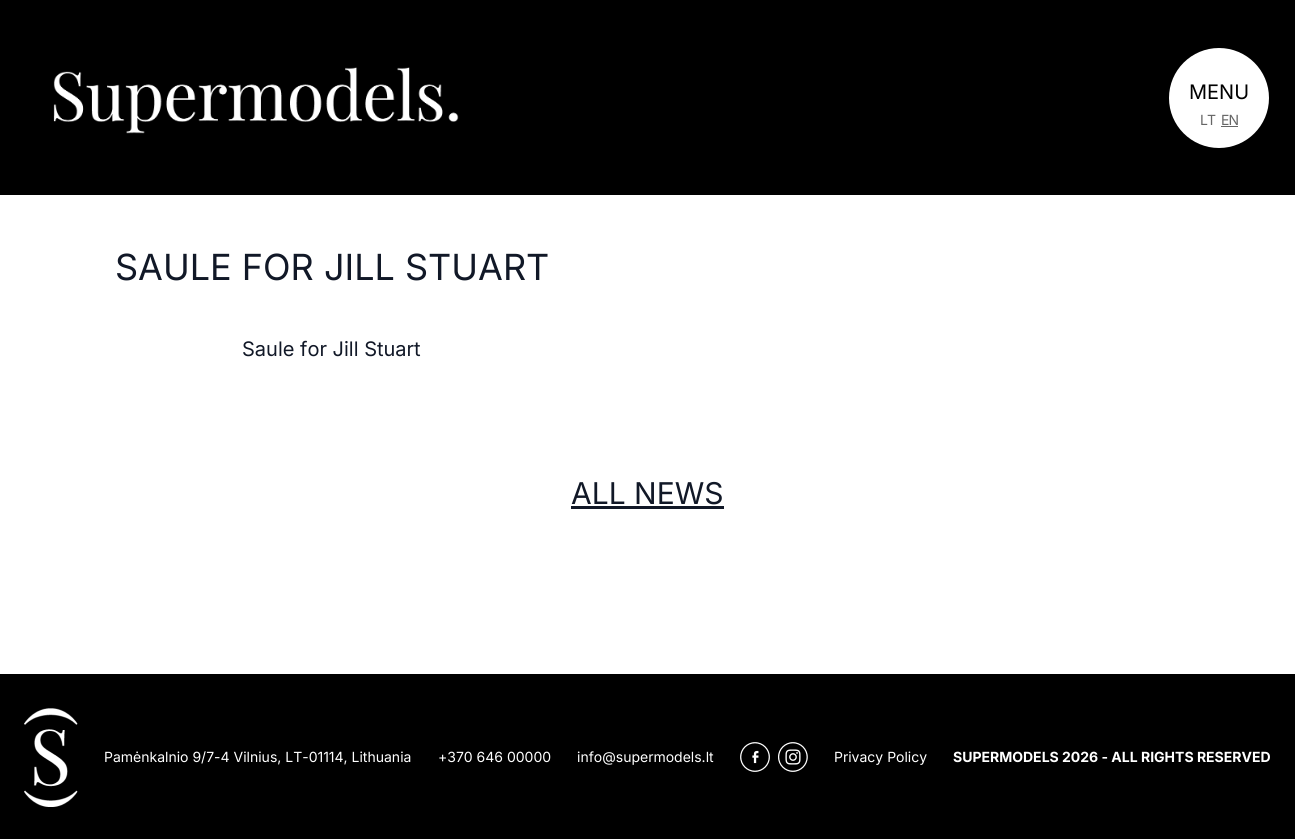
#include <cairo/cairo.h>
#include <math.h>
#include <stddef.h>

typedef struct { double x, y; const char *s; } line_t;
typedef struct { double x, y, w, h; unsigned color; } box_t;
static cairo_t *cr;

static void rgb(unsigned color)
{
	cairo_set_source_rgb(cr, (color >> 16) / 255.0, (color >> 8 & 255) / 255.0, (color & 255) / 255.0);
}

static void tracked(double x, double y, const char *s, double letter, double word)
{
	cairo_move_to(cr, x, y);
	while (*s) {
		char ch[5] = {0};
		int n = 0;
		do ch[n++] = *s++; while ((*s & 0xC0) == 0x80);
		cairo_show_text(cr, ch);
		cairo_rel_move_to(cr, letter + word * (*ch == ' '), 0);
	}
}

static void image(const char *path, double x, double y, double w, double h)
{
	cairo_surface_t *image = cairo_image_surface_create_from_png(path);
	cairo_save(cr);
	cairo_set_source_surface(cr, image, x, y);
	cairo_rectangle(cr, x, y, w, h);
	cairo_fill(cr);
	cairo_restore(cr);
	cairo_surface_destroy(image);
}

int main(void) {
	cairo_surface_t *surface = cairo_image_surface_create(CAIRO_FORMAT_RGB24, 1295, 839);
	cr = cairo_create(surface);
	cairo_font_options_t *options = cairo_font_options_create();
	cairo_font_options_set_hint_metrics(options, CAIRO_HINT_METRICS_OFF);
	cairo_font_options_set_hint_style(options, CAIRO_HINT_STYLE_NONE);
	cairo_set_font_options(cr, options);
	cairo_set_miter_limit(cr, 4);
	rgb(0xffffff);
	cairo_paint(cr);
	rgb(0x000000);
	cairo_rectangle(cr, 0, 0, 1295, 195);
	cairo_fill(cr);
	image("img/1.png", 53, 67, 406, 67);
	rgb(0xffffff);
	cairo_arc(cr, 1219, 98, 50, 0, 2 * M_PI);
	cairo_fill(cr);
	{
		static const box_t items[] = {
			{1221, 126, 17, 1, 0x666666},
			{571, 506, 153, 3, 0x111827},
			{0, 674, 1295, 165, 0x000000},
		};
		for (size_t i = 0; i < sizeof items / sizeof *items; i++) {
			rgb(items[i].color);
			cairo_rectangle(cr, items[i].x, items[i].y, items[i].w, items[i].h);
			cairo_fill(cr);
		}
	}
	image("img/2.png", 24, 708, 54, 99);
	image("img/3.png", 740, 742, 30, 30);
	image("img/4.png", 778, 742, 30, 30);
	cairo_select_font_face(cr, "Inter", CAIRO_FONT_SLANT_NORMAL, CAIRO_FONT_WEIGHT_NORMAL);
	cairo_set_font_size(cr, 20);
	cairo_move_to(cr, 1189, 99);
	cairo_show_text(cr, "MENU");
	cairo_set_font_size(cr, 14);
	rgb(0x666666);
	tracked(1200, 125, "LT", -1, 0);
	tracked(1221, 125, "EN", -1, 0);
	cairo_set_font_size(cr, 36);
	rgb(0x111827);
	cairo_move_to(cr, 115, 280);
	cairo_show_text(cr, "SAULE FOR JILL STUART");
	cairo_set_font_size(cr, 20);
	cairo_move_to(cr, 242, 356);
	cairo_show_text(cr, "Saule for Jill Stuart");
	cairo_set_font_size(cr, 30);
	cairo_move_to(cr, 571, 504);
	cairo_show_text(cr, "ALL NEWS");
	cairo_set_font_size(cr, 14);
	rgb(0xffffff);
	{
		static const line_t items[] = {
			{104, 762, "Pamėnkalnio 9/7-4 Vilnius, LT-01114, Lithuania"},
			{438, 762, "+370 646 00000"},
			{577, 762, "info@supermodels.lt"},
			{834, 762, "Privacy Policy"},
		};
		for (size_t i = 0; i < sizeof items / sizeof *items; i++) {
			cairo_move_to(cr, items[i].x, items[i].y);
			cairo_show_text(cr, items[i].s);
		}
	}
	cairo_select_font_face(cr, "Inter", CAIRO_FONT_SLANT_NORMAL, CAIRO_FONT_WEIGHT_BOLD);
	cairo_move_to(cr, 953, 762);
	cairo_show_text(cr, "SUPERMODELS 2026 - ALL RIGHTS RESERVED");
	cairo_surface_write_to_png(surface, "page.png");
	cairo_font_options_destroy(options);
	cairo_destroy(cr);
	cairo_surface_destroy(surface);
	return 0;
}
